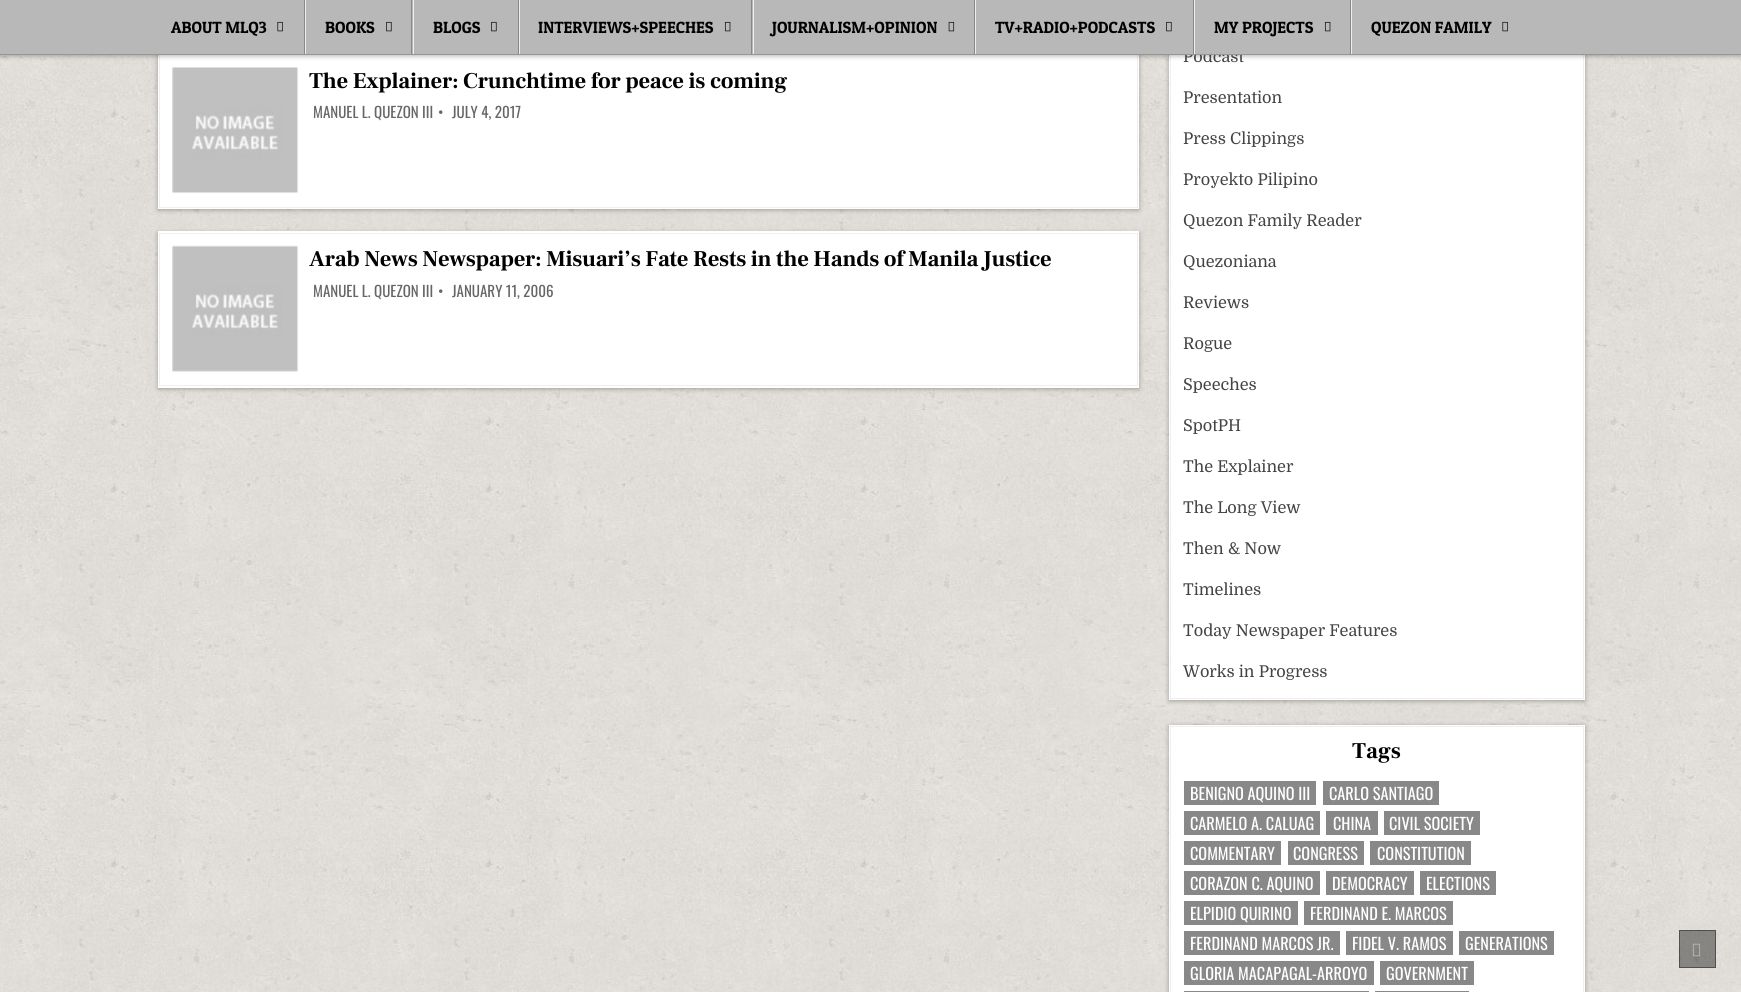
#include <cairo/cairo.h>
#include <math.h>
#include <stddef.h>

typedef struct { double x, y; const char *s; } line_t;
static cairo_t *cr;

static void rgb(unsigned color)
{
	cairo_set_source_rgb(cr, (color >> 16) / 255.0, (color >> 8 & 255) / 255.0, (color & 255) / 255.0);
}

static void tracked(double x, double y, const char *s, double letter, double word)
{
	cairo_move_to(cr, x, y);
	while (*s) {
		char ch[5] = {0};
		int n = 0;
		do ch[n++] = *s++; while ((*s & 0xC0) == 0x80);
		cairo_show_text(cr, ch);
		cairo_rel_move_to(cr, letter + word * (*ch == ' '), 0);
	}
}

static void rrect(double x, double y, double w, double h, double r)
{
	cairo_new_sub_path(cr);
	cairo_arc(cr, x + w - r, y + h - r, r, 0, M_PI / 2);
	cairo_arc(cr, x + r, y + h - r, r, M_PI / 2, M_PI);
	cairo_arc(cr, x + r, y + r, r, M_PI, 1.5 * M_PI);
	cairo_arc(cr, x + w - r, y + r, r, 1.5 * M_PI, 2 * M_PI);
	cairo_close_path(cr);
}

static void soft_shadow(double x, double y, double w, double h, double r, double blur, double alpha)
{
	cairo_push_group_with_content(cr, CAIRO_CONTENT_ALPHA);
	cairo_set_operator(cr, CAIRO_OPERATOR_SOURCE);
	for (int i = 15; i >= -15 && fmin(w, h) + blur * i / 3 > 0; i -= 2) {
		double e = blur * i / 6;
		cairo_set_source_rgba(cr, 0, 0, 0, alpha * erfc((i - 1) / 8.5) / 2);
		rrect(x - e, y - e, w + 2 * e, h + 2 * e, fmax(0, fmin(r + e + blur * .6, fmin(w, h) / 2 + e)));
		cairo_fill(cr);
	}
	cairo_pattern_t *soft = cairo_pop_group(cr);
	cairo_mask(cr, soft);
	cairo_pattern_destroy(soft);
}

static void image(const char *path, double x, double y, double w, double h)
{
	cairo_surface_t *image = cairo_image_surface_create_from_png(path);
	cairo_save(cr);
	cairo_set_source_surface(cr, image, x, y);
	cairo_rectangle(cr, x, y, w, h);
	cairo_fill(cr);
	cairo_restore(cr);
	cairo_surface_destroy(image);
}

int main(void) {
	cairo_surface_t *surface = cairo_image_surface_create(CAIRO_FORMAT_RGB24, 1741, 992);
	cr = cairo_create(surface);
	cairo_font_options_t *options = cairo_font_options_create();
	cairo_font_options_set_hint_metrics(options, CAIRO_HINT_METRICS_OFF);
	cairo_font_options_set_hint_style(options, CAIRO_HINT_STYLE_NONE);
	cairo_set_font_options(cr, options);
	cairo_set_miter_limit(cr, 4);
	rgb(0xffffff);
	cairo_paint(cr);
	image("img/1.png", 0, 55, 1741, 937);
	rgb(0x000000);
	soft_shadow(158, 54, 981, 156, 0, 2.5, 0.3);
	rgb(0xffffff);
	cairo_rectangle(cr, 158, 55, 981, 154);
	cairo_fill(cr);
	cairo_rectangle(cr, 159.5, 54.5, 978, 153);
	rgb(0xefefef);
	cairo_set_line_width(cr, 1);
	cairo_stroke(cr);
	rgb(0x000000);
	soft_shadow(1169, -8, 416, 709, 0, 2.5, 0.3);
	rgb(0xffffff);
	cairo_rectangle(cr, 1169, 55, 416, 645);
	cairo_fill(cr);
	cairo_rectangle(cr, 1170.5, -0.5, 413, 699);
	rgb(0xefefef);
	cairo_stroke(cr);
	rgb(0x000000);
	soft_shadow(0, 1, 1741, 55, 0, 2.5, 0.3);
	image("img/6.png", 172, 67, 127, 126);
	soft_shadow(158, 233, 981, 156, 0, 2.5, 0.3);
	rgb(0xffffff);
	cairo_rectangle(cr, 158, 231, 981, 157);
	cairo_fill(cr);
	cairo_rectangle(cr, 159.5, 233.5, 978, 152);
	rgb(0xefefef);
	cairo_stroke(cr);
	image("img/7.png", 172, 245, 127, 127);
	rgb(0x000000);
	soft_shadow(1169, 726, 416, 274, 0, 2.5, 0.3);
	rgb(0xffffff);
	cairo_rectangle(cr, 1169, 725, 416, 267);
	cairo_fill(cr);
	cairo_rectangle(cr, 1170.5, 726.5, 413, 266);
	rgb(0xefefef);
	cairo_stroke(cr);
	rgb(0x888888);
	cairo_rectangle(cr, 1184, 781, 132, 24);
	cairo_fill(cr);
	cairo_rectangle(cr, 1323, 781, 116, 24);
	cairo_fill(cr);
	cairo_rectangle(cr, 1184, 811, 136, 24);
	cairo_fill(cr);
	cairo_rectangle(cr, 1326, 811, 52, 24);
	cairo_fill(cr);
	cairo_rectangle(cr, 1384, 811, 96, 24);
	cairo_fill(cr);
	cairo_rectangle(cr, 1184, 841, 97, 24);
	cairo_fill(cr);
	cairo_rectangle(cr, 1288, 841, 76, 24);
	cairo_fill(cr);
	cairo_rectangle(cr, 1370, 841, 101, 24);
	cairo_fill(cr);
	cairo_rectangle(cr, 1184, 871, 136, 24);
	cairo_fill(cr);
	cairo_rectangle(cr, 1326, 871, 88, 24);
	cairo_fill(cr);
	cairo_rectangle(cr, 1420, 871, 76, 24);
	cairo_fill(cr);
	cairo_rectangle(cr, 1184, 901, 114, 24);
	cairo_fill(cr);
	cairo_rectangle(cr, 1304, 901, 149, 24);
	cairo_fill(cr);
	cairo_rectangle(cr, 1184, 931, 156, 24);
	cairo_fill(cr);
	cairo_rectangle(cr, 1346, 931, 107, 24);
	cairo_fill(cr);
	cairo_rectangle(cr, 1459, 931, 95, 24);
	cairo_fill(cr);
	cairo_rectangle(cr, 1184, 961, 190, 24);
	cairo_fill(cr);
	cairo_rectangle(cr, 1380, 961, 94, 24);
	cairo_fill(cr);
	cairo_rectangle(cr, 1184, 991, 185, 1);
	cairo_fill(cr);
	cairo_rectangle(cr, 1375, 991, 94, 1);
	cairo_fill(cr);
	cairo_set_source_rgba(cr, 0, 0, 0, 0.4);
	cairo_rectangle(cr, 1679, 930, 37, 38);
	cairo_fill(cr);
	cairo_rectangle(cr, 1679.5, 930.5, 36, 37);
	cairo_stroke(cr);
	image("img/8.png", 1692, 943, 9, 14);
	cairo_select_font_face(cr, "Frank Ruhl Libre", CAIRO_FONT_SLANT_NORMAL, CAIRO_FONT_WEIGHT_BOLD);
	cairo_set_font_size(cr, 22.5);
	rgb(0x000000);
	tracked(309, 88, "The Explainer: Crunchtime for peace is coming", -0.25, 0);
	cairo_select_font_face(cr, "Oswald", CAIRO_FONT_SLANT_NORMAL, CAIRO_FONT_WEIGHT_NORMAL);
	cairo_set_font_size(cr, 15);
	rgb(0x666666);
	{
		static const line_t items[] = {
			{313, 118, "MANUEL L. QUEZON III"},
			{438, 118, "•"},
			{452, 118, "JULY 4, 2017"},
		};
		for (size_t i = 0; i < sizeof items / sizeof *items; i++) {
			cairo_move_to(cr, items[i].x, items[i].y);
			cairo_show_text(cr, items[i].s);
		}
	}
	cairo_select_font_face(cr, "Frank Ruhl Libre", CAIRO_FONT_SLANT_NORMAL, CAIRO_FONT_WEIGHT_BOLD);
	cairo_set_font_size(cr, 22.5);
	rgb(0x000000);
	tracked(309, 266, "Arab News Newspaper: Misuari’s Fate Rests in the Hands of Manila Justice", -0.25, 0);
	cairo_select_font_face(cr, "Oswald", CAIRO_FONT_SLANT_NORMAL, CAIRO_FONT_WEIGHT_NORMAL);
	cairo_set_font_size(cr, 15);
	rgb(0x666666);
	{
		static const line_t items[] = {
			{313, 297, "MANUEL L. QUEZON III"},
			{438, 297, "•"},
			{452, 297, "JANUARY 11, 2006"},
		};
		for (size_t i = 0; i < sizeof items / sizeof *items; i++) {
			cairo_move_to(cr, items[i].x, items[i].y);
			cairo_show_text(cr, items[i].s);
		}
	}
	cairo_select_font_face(cr, "Domine", CAIRO_FONT_SLANT_NORMAL, CAIRO_FONT_WEIGHT_NORMAL);
	cairo_set_font_size(cr, 16.25);
	rgb(0x444444);
	cairo_move_to(cr, 1183, 62);
	cairo_show_text(cr, "Podcast");
	rgb(0xb8b8b8);
	cairo_rectangle(cr, 0, 0, 1741, 54);
	cairo_fill(cr);
	image("img/2.png", 1502, 21, 6, 11);
	cairo_select_font_face(cr, "Patua One", CAIRO_FONT_SLANT_NORMAL, CAIRO_FONT_WEIGHT_NORMAL);
	rgb(0x000000);
	cairo_move_to(cr, 1371, 33);
	cairo_show_text(cr, "QUEZON FAMILY");
	rgb(0xeeeeee);
	cairo_rectangle(cr, 1351, 0, 1, 54);
	cairo_fill(cr);
	image("img/4.png", 1324, 21, 7, 11);
	rgb(0x000000);
	cairo_move_to(cr, 1214, 33);
	cairo_show_text(cr, "MY PROJECTS");
	rgb(0xeeeeee);
	cairo_rectangle(cr, 1194, 0, 1, 54);
	cairo_fill(cr);
	rgb(0x888888);
	cairo_rectangle(cr, 1350, 0, 1, 54);
	cairo_fill(cr);
	image("img/3.png", 1166, 21, 6, 11);
	rgb(0x000000);
	cairo_move_to(cr, 995, 33);
	cairo_show_text(cr, "TV+RADIO+PODCASTS");
	rgb(0xeeeeee);
	cairo_rectangle(cr, 975, 0, 1, 54);
	cairo_fill(cr);
	rgb(0x888888);
	cairo_rectangle(cr, 1193, 0, 1, 54);
	cairo_fill(cr);
	image("img/5.png", 948, 21, 7, 11);
	rgb(0x000000);
	cairo_move_to(cr, 772, 33);
	cairo_show_text(cr, "JOURNALISM+OPINION");
	rgb(0xeeeeee);
	cairo_rectangle(cr, 753, 0, 1, 54);
	cairo_fill(cr);
	rgb(0x888888);
	cairo_rectangle(cr, 974, 0, 1, 54);
	cairo_fill(cr);
	image("img/4.png", 724, 21, 7, 11);
	rgb(0x000000);
	cairo_move_to(cr, 538, 33);
	cairo_show_text(cr, "INTERVIEWS+SPEECHES");
	rgb(0xeeeeee);
	cairo_rectangle(cr, 519, 0, 1, 54);
	cairo_fill(cr);
	rgb(0x888888);
	cairo_rectangle(cr, 751, 0, 1, 54);
	cairo_fill(cr);
	image("img/3.png", 491, 21, 6, 11);
	rgb(0x000000);
	cairo_move_to(cr, 433, 33);
	cairo_show_text(cr, "BLOGS");
	rgb(0xeeeeee);
	cairo_rectangle(cr, 413, 0, 1, 54);
	cairo_fill(cr);
	rgb(0x888888);
	cairo_rectangle(cr, 518, 0, 1, 54);
	cairo_fill(cr);
	image("img/3.png", 386, 21, 6, 11);
	rgb(0x000000);
	cairo_move_to(cr, 325, 33);
	cairo_show_text(cr, "BOOKS");
	rgb(0xeeeeee);
	cairo_rectangle(cr, 305, 0, 1, 54);
	cairo_fill(cr);
	rgb(0x888888);
	cairo_rectangle(cr, 411, 0, 1, 54);
	cairo_fill(cr);
	image("img/2.png", 277, 21, 6, 11);
	rgb(0x000000);
	cairo_move_to(cr, 171, 33);
	cairo_show_text(cr, "ABOUT MLQ3");
	rgb(0x888888);
	cairo_rectangle(cr, 304, 0, 1, 54);
	cairo_fill(cr);
	rgb(0x969696);
	cairo_rectangle(cr, 0, 54, 1741, 1);
	cairo_fill(cr);
	cairo_select_font_face(cr, "Domine", CAIRO_FONT_SLANT_NORMAL, CAIRO_FONT_WEIGHT_NORMAL);
	rgb(0x444444);
	{
		static const line_t items[] = {
			{1183, 103, "Presentation"},
			{1183, 144, "Press Clippings"},
			{1183, 185, "Proyekto Pilipino"},
			{1183, 226, "Quezon Family Reader"},
			{1183, 267, "Quezoniana"},
			{1183, 308, "Reviews"},
			{1183, 349, "Rogue"},
			{1183, 390, "Speeches"},
			{1183, 431, "SpotPH"},
			{1183, 472, "The Explainer"},
			{1183, 513, "The Long View"},
			{1183, 554, "Then & Now"},
			{1183, 595, "Timelines"},
			{1183, 636, "Today Newspaper Features"},
			{1183, 677, "Works in Progress"},
		};
		for (size_t i = 0; i < sizeof items / sizeof *items; i++) {
			cairo_move_to(cr, items[i].x, items[i].y);
			cairo_show_text(cr, items[i].s);
		}
	}
	cairo_select_font_face(cr, "Frank Ruhl Libre", CAIRO_FONT_SLANT_NORMAL, CAIRO_FONT_WEIGHT_BOLD);
	cairo_set_font_size(cr, 22.5);
	rgb(0x000000);
	cairo_move_to(cr, 1352, 758);
	cairo_show_text(cr, "Tags");
	cairo_select_font_face(cr, "Oswald", CAIRO_FONT_SLANT_NORMAL, CAIRO_FONT_WEIGHT_NORMAL);
	cairo_set_font_size(cr, 16.25);
	rgb(0xffffff);
	{
		static const line_t items[] = {
			{1190, 800, "BENIGNO AQUINO III"},
			{1329, 800, "CARLO SANTIAGO"},
			{1190, 830, "CARMELO A. CALUAG"},
			{1333, 830, "CHINA"},
			{1389, 830, "CIVIL SOCIETY"},
			{1190, 860, "COMMENTARY"},
			{1293, 860, "CONGRESS"},
			{1377, 860, "CONSTITUTION"},
			{1190, 890, "CORAZON C. AQUINO"},
			{1332, 890, "DEMOCRACY"},
			{1426, 890, "ELECTIONS"},
			{1190, 920, "ELPIDIO QUIRINO"},
			{1310, 920, "FERDINAND E. MARCOS"},
			{1190, 950, "FERDINAND MARCOS JR."},
			{1352, 950, "FIDEL V. RAMOS"},
			{1465, 950, "GENERATIONS"},
			{1190, 980, "GLORIA MACAPAGAL-ARROYO"},
			{1386, 980, "GOVERNMENT"},
		};
		for (size_t i = 0; i < sizeof items / sizeof *items; i++) {
			cairo_move_to(cr, items[i].x, items[i].y);
			cairo_show_text(cr, items[i].s);
		}
	}
	cairo_surface_write_to_png(surface, "page.png");
	cairo_font_options_destroy(options);
	cairo_destroy(cr);
	cairo_surface_destroy(surface);
	return 0;
}
